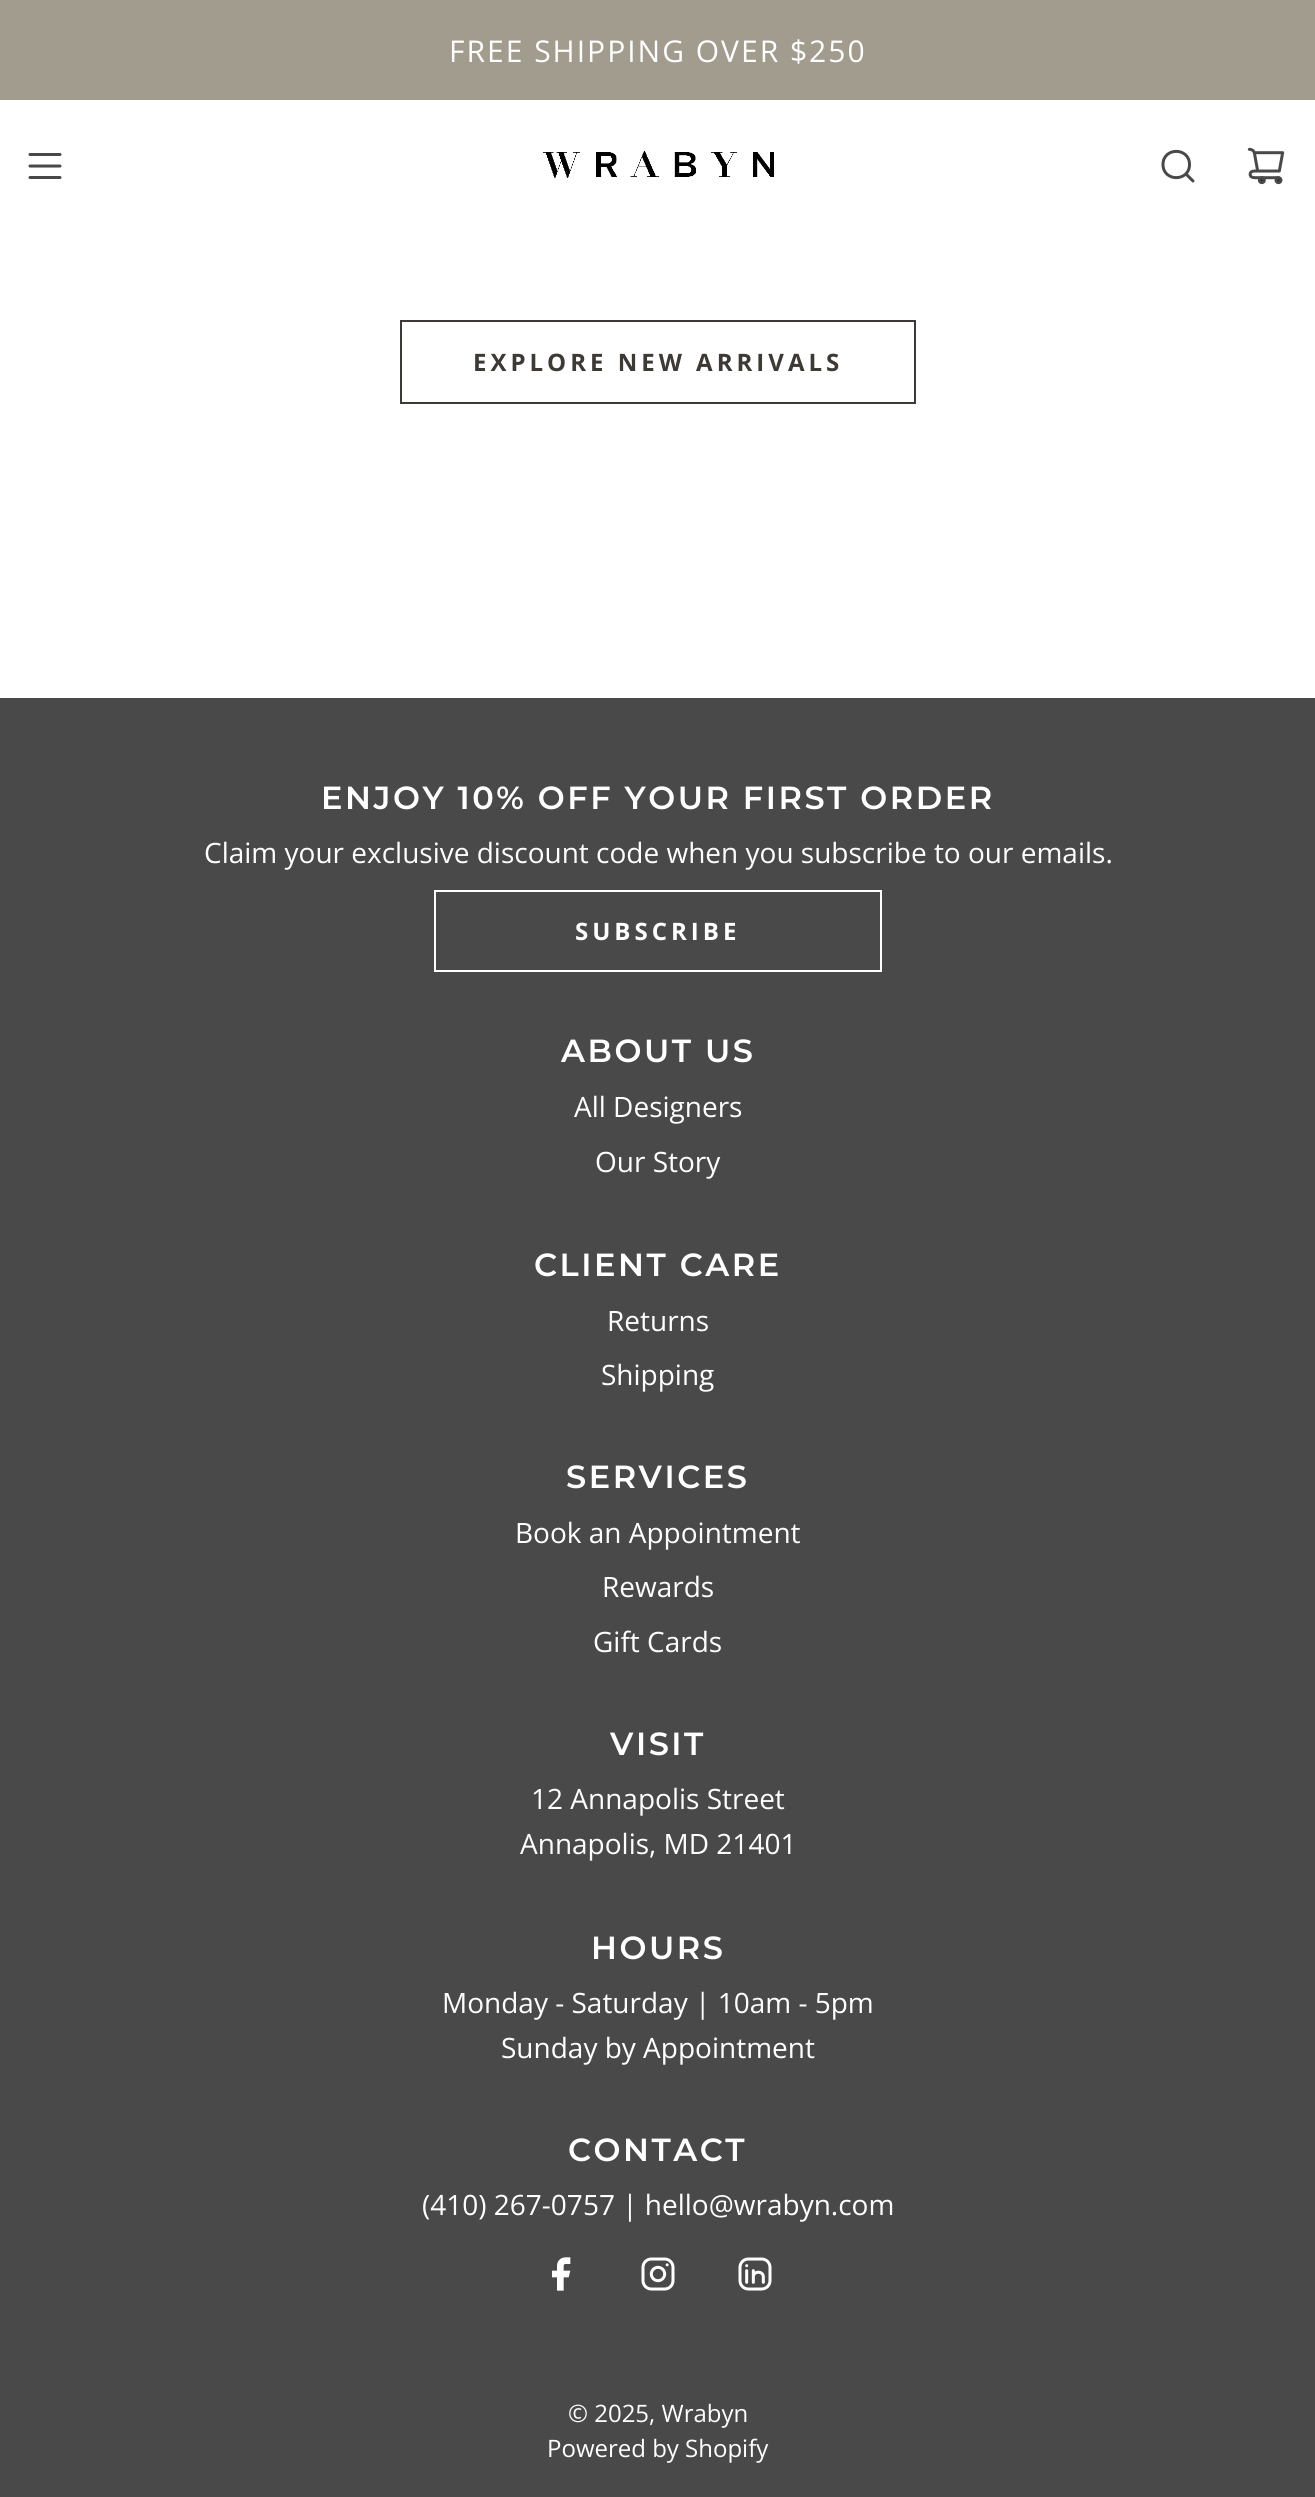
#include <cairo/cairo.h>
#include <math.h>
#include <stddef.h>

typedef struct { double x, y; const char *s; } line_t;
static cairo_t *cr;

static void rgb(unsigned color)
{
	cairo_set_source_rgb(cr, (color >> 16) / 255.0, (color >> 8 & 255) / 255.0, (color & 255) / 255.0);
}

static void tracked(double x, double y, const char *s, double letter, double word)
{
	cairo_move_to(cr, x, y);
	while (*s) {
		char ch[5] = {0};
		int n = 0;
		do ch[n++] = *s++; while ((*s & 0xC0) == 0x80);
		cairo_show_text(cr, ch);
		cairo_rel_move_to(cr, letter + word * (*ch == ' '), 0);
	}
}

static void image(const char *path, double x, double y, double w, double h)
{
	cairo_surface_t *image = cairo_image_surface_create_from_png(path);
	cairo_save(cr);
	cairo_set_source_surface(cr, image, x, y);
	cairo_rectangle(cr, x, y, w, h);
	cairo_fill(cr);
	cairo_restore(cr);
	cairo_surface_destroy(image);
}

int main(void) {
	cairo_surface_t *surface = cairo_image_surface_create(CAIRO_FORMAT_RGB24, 1315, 2497);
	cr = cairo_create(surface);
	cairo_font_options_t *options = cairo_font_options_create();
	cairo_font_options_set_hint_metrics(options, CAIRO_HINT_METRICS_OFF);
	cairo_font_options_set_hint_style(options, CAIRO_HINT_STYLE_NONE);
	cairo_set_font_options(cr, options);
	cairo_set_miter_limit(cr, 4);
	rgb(0xffffff);
	cairo_paint(cr);
	rgb(0xa29c8e);
	cairo_rectangle(cr, 0, 0, 1315, 100);
	cairo_fill(cr);
	cairo_new_path(cr);
	cairo_move_to(cr, 30, 154.5);
	cairo_line_to(cr, 60, 154.5);
	cairo_move_to(cr, 30, 166);
	cairo_line_to(cr, 60, 166);
	cairo_move_to(cr, 30, 177.5);
	cairo_line_to(cr, 60, 177.5);
	rgb(0x494949);
	cairo_set_line_width(cr, 3);
	cairo_set_line_cap(cr, CAIRO_LINE_CAP_ROUND);
	cairo_set_line_join(cr, CAIRO_LINE_JOIN_ROUND);
	cairo_stroke(cr);
	image("img/1.png", 542, 151, 233, 27);
	cairo_new_path(cr);
	cairo_move_to(cr, 1186.5, 174.5);
	cairo_line_to(cr, 1193, 181);
	cairo_move_to(cr, 1163, 164.5);
	cairo_curve_to(cr, 1163, 182, 1189.5, 182, 1189.5, 164.5);
	cairo_curve_to(cr, 1189.5, 147, 1163, 147, 1163, 164.5);
	cairo_close_path(cr);
	cairo_stroke(cr);
	image("img/2.png", 1247, 147, 38, 38);
	cairo_rectangle(cr, 401, 321, 514, 82);
	rgb(0x3d3935);
	cairo_set_line_width(cr, 2);
	cairo_set_line_cap(cr, CAIRO_LINE_CAP_BUTT);
	cairo_set_line_join(cr, CAIRO_LINE_JOIN_MITER);
	cairo_stroke(cr);
	rgb(0x494949);
	cairo_rectangle(cr, 0, 698, 1315, 1799);
	cairo_fill(cr);
	cairo_rectangle(cr, 435, 891, 446, 80);
	rgb(0xffffff);
	cairo_stroke(cr);
	image("img/3.png", 552, 2257, 19, 34);
	image("img/4.png", 641, 2257, 34, 34);
	image("img/5.png", 738, 2257, 34, 34);
	cairo_select_font_face(cr, "Open Sans", CAIRO_FONT_SLANT_NORMAL, CAIRO_FONT_WEIGHT_NORMAL);
	cairo_set_font_size(cr, 30);
	tracked(449, 62, "FREE SHIPPING OVER $250", 2, 0);
	cairo_select_font_face(cr, "Open Sans", CAIRO_FONT_SLANT_NORMAL, CAIRO_FONT_WEIGHT_BOLD);
	cairo_set_font_size(cr, 24);
	rgb(0x3d3935);
	tracked(473, 371, "EXPLORE NEW ARRIVALS", 4, 0);
	cairo_select_font_face(cr, "Montserrat SemiBold", CAIRO_FONT_SLANT_NORMAL, CAIRO_FONT_WEIGHT_NORMAL);
	cairo_set_font_size(cr, 32);
	rgb(0xffffff);
	tracked(321, 809, "ENJOY 10% OFF YOUR FIRST ORDER", 2.55, 0);
	cairo_select_font_face(cr, "Open Sans", CAIRO_FONT_SLANT_NORMAL, CAIRO_FONT_WEIGHT_NORMAL);
	cairo_set_font_size(cr, 28);
	cairo_move_to(cr, 204, 863);
	cairo_show_text(cr, "Claim your exclusive discount code when you subscribe to our emails.");
	cairo_select_font_face(cr, "Open Sans", CAIRO_FONT_SLANT_NORMAL, CAIRO_FONT_WEIGHT_BOLD);
	cairo_set_font_size(cr, 24);
	tracked(575, 940, "SUBSCRIBE", 4, 0);
	cairo_select_font_face(cr, "Montserrat SemiBold", CAIRO_FONT_SLANT_NORMAL, CAIRO_FONT_WEIGHT_NORMAL);
	cairo_set_font_size(cr, 32);
	tracked(561, 1062, "ABOUT US", 2.55, 0);
	cairo_select_font_face(cr, "Open Sans", CAIRO_FONT_SLANT_NORMAL, CAIRO_FONT_WEIGHT_NORMAL);
	cairo_set_font_size(cr, 28);
	cairo_move_to(cr, 574, 1117);
	cairo_show_text(cr, "All Designers");
	cairo_move_to(cr, 595, 1172);
	cairo_show_text(cr, "Our Story");
	cairo_select_font_face(cr, "Montserrat SemiBold", CAIRO_FONT_SLANT_NORMAL, CAIRO_FONT_WEIGHT_NORMAL);
	cairo_set_font_size(cr, 32);
	tracked(534, 1276, "CLIENT CARE", 2.55, 0);
	cairo_select_font_face(cr, "Open Sans", CAIRO_FONT_SLANT_NORMAL, CAIRO_FONT_WEIGHT_NORMAL);
	cairo_set_font_size(cr, 28);
	cairo_move_to(cr, 607, 1331);
	cairo_show_text(cr, "Returns");
	cairo_move_to(cr, 601, 1385);
	cairo_show_text(cr, "Shipping");
	cairo_select_font_face(cr, "Montserrat SemiBold", CAIRO_FONT_SLANT_NORMAL, CAIRO_FONT_WEIGHT_NORMAL);
	cairo_set_font_size(cr, 32);
	tracked(566, 1488, "SERVICES", 2.55, 0);
	cairo_select_font_face(cr, "Open Sans", CAIRO_FONT_SLANT_NORMAL, CAIRO_FONT_WEIGHT_NORMAL);
	cairo_set_font_size(cr, 28);
	{
		static const line_t items[] = {
			{515, 1543, "Book an Appointment"},
			{602, 1597, "Rewards"},
			{593, 1652, "Gift Cards"},
		};
		for (size_t i = 0; i < sizeof items / sizeof *items; i++) {
			cairo_move_to(cr, items[i].x, items[i].y);
			cairo_show_text(cr, items[i].s);
		}
	}
	cairo_select_font_face(cr, "Montserrat SemiBold", CAIRO_FONT_SLANT_NORMAL, CAIRO_FONT_WEIGHT_NORMAL);
	cairo_set_font_size(cr, 32);
	tracked(610, 1755, "VISIT", 2.55, 0);
	cairo_select_font_face(cr, "Open Sans", CAIRO_FONT_SLANT_NORMAL, CAIRO_FONT_WEIGHT_NORMAL);
	cairo_set_font_size(cr, 28);
	cairo_move_to(cr, 531, 1809);
	cairo_show_text(cr, "12 Annapolis Street");
	cairo_move_to(cr, 520, 1854);
	cairo_show_text(cr, "Annapolis, MD 21401");
	cairo_select_font_face(cr, "Montserrat SemiBold", CAIRO_FONT_SLANT_NORMAL, CAIRO_FONT_WEIGHT_NORMAL);
	cairo_set_font_size(cr, 32);
	tracked(591, 1959, "HOURS", 2.55, 0);
	cairo_select_font_face(cr, "Open Sans", CAIRO_FONT_SLANT_NORMAL, CAIRO_FONT_WEIGHT_NORMAL);
	cairo_set_font_size(cr, 28);
	cairo_move_to(cr, 442, 2013);
	cairo_show_text(cr, "Monday - Saturday | 10am - 5pm");
	cairo_move_to(cr, 501, 2058);
	cairo_show_text(cr, "Sunday by Appointment");
	cairo_select_font_face(cr, "Montserrat SemiBold", CAIRO_FONT_SLANT_NORMAL, CAIRO_FONT_WEIGHT_NORMAL);
	cairo_set_font_size(cr, 32);
	tracked(568, 2161, "CONTACT", 2.55, 0);
	cairo_select_font_face(cr, "Open Sans", CAIRO_FONT_SLANT_NORMAL, CAIRO_FONT_WEIGHT_NORMAL);
	cairo_set_font_size(cr, 28);
	cairo_move_to(cr, 422, 2215);
	cairo_show_text(cr, "(410) 267-0757 | hello@wrabyn.com");
	cairo_set_font_size(cr, 24);
	cairo_move_to(cr, 568, 2422);
	cairo_show_text(cr, "© 2025, Wrabyn");
	cairo_move_to(cr, 547, 2457);
	cairo_show_text(cr, "Powered by Shopify");
	cairo_surface_write_to_png(surface, "page.png");
	cairo_font_options_destroy(options);
	cairo_destroy(cr);
	cairo_surface_destroy(surface);
	return 0;
}
